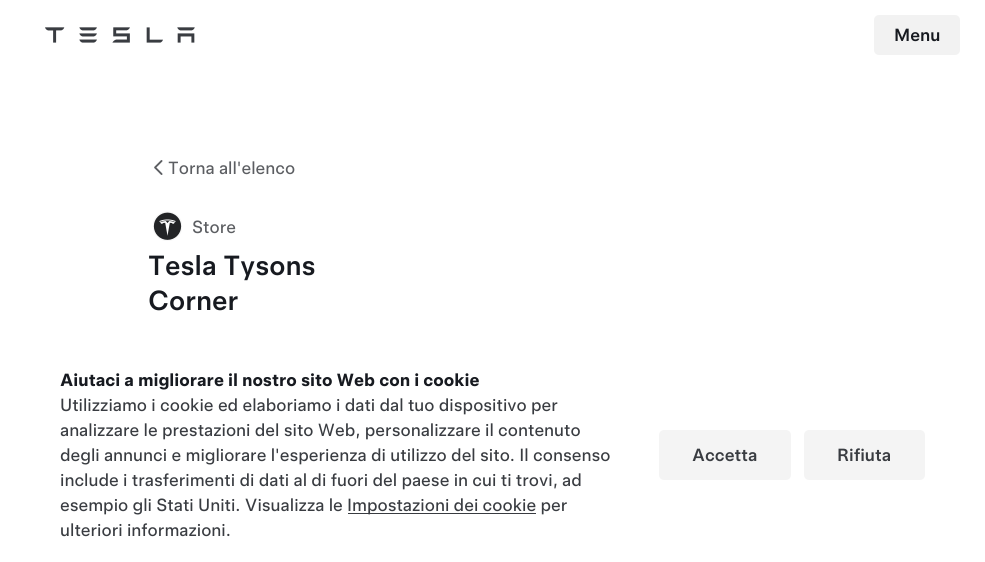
#include <cairo/cairo.h>
#include <math.h>
#include <stddef.h>

typedef struct { double x, y; const char *s; } line_t;
static cairo_t *cr;

static void rgb(unsigned color)
{
	cairo_set_source_rgb(cr, (color >> 16) / 255.0, (color >> 8 & 255) / 255.0, (color & 255) / 255.0);
}

static void rrect(double x, double y, double w, double h, double r)
{
	cairo_new_sub_path(cr);
	cairo_arc(cr, x + w - r, y + h - r, r, 0, M_PI / 2);
	cairo_arc(cr, x + r, y + h - r, r, M_PI / 2, M_PI);
	cairo_arc(cr, x + r, y + r, r, M_PI, 1.5 * M_PI);
	cairo_arc(cr, x + w - r, y + r, r, 1.5 * M_PI, 2 * M_PI);
	cairo_close_path(cr);
}

static void image(const char *path, double x, double y, double w, double h)
{
	cairo_surface_t *image = cairo_image_surface_create_from_png(path);
	cairo_save(cr);
	cairo_set_source_surface(cr, image, x, y);
	cairo_rectangle(cr, x, y, w, h);
	cairo_fill(cr);
	cairo_restore(cr);
	cairo_surface_destroy(image);
}

int main(void) {
	cairo_surface_t *surface = cairo_image_surface_create(CAIRO_FORMAT_RGB24, 985, 562);
	cr = cairo_create(surface);
	cairo_font_options_t *options = cairo_font_options_create();
	cairo_font_options_set_hint_metrics(options, CAIRO_HINT_METRICS_OFF);
	cairo_font_options_set_hint_style(options, CAIRO_HINT_STYLE_NONE);
	cairo_set_font_options(cr, options);
	cairo_set_miter_limit(cr, 4);
	rgb(0xffffff);
	cairo_paint(cr);
	image("img/1.png", 45, 27, 150, 16);
	rgb(0xf2f2f2);
	rrect(874, 15, 86, 40, 5);
	cairo_fill(cr);
	image("img/2.png", 154, 160, 9, 15);
	image("img/3.png", 153, 211, 29, 30);
	rgb(0x393c41);
	cairo_rectangle(cr, 348, 513, 188, 1);
	cairo_fill(cr);
	rgb(0xf4f4f4);
	rrect(659, 430, 132, 50, 5);
	cairo_fill(cr);
	rrect(804, 430, 121, 50, 5);
	cairo_fill(cr);
	cairo_select_font_face(cr, "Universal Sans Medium", CAIRO_FONT_SLANT_NORMAL, CAIRO_FONT_WEIGHT_NORMAL);
	cairo_set_font_size(cr, 17.5);
	rgb(0x171a20);
	cairo_move_to(cr, 894, 41);
	cairo_show_text(cr, "Menu");
	cairo_select_font_face(cr, "Universal Sans", CAIRO_FONT_SLANT_NORMAL, CAIRO_FONT_WEIGHT_NORMAL);
	rgb(0x5c5e62);
	cairo_move_to(cr, 168, 174);
	cairo_show_text(cr, "Torna all'elenco");
	cairo_move_to(cr, 192, 233);
	cairo_show_text(cr, "Store");
	cairo_select_font_face(cr, "Universal Sans Medium", CAIRO_FONT_SLANT_NORMAL, CAIRO_FONT_WEIGHT_NORMAL);
	cairo_set_font_size(cr, 27.5);
	rgb(0x171a20);
	cairo_move_to(cr, 148, 275);
	cairo_show_text(cr, "Tesla Tysons");
	cairo_move_to(cr, 148, 310);
	cairo_show_text(cr, "Corner");
	cairo_select_font_face(cr, "Universal Sans", CAIRO_FONT_SLANT_NORMAL, CAIRO_FONT_WEIGHT_BOLD);
	cairo_set_font_size(cr, 17.5);
	cairo_move_to(cr, 60, 386);
	cairo_show_text(cr, "Aiutaci a migliorare il nostro sito Web con i cookie");
	cairo_select_font_face(cr, "Universal Sans", CAIRO_FONT_SLANT_NORMAL, CAIRO_FONT_WEIGHT_NORMAL);
	rgb(0x393c41);
	{
		static const line_t items[] = {
			{60, 411, "Utilizziamo i cookie ed elaboriamo i dati dal tuo dispositivo per"},
			{60, 436, "analizzare le prestazioni del sito Web, personalizzare il contenuto"},
			{60, 461, "degli annunci e migliorare l'esperienza di utilizzo del sito. Il consenso"},
			{60, 486, "include i trasferimenti di dati al di fuori del paese in cui ti trovi, ad"},
			{60, 511, "esempio gli Stati Uniti. Visualizza le"},
			{347, 511, "Impostazioni dei cookie per"},
			{60, 536, "ulteriori informazioni."},
		};
		for (size_t i = 0; i < sizeof items / sizeof *items; i++) {
			cairo_move_to(cr, items[i].x, items[i].y);
			cairo_show_text(cr, items[i].s);
		}
	}
	cairo_select_font_face(cr, "Universal Sans Medium", CAIRO_FONT_SLANT_NORMAL, CAIRO_FONT_WEIGHT_NORMAL);
	cairo_move_to(cr, 692, 461);
	cairo_show_text(cr, "Accetta");
	cairo_move_to(cr, 837, 461);
	cairo_show_text(cr, "Rifiuta");
	cairo_surface_write_to_png(surface, "page.png");
	cairo_font_options_destroy(options);
	cairo_destroy(cr);
	cairo_surface_destroy(surface);
	return 0;
}
